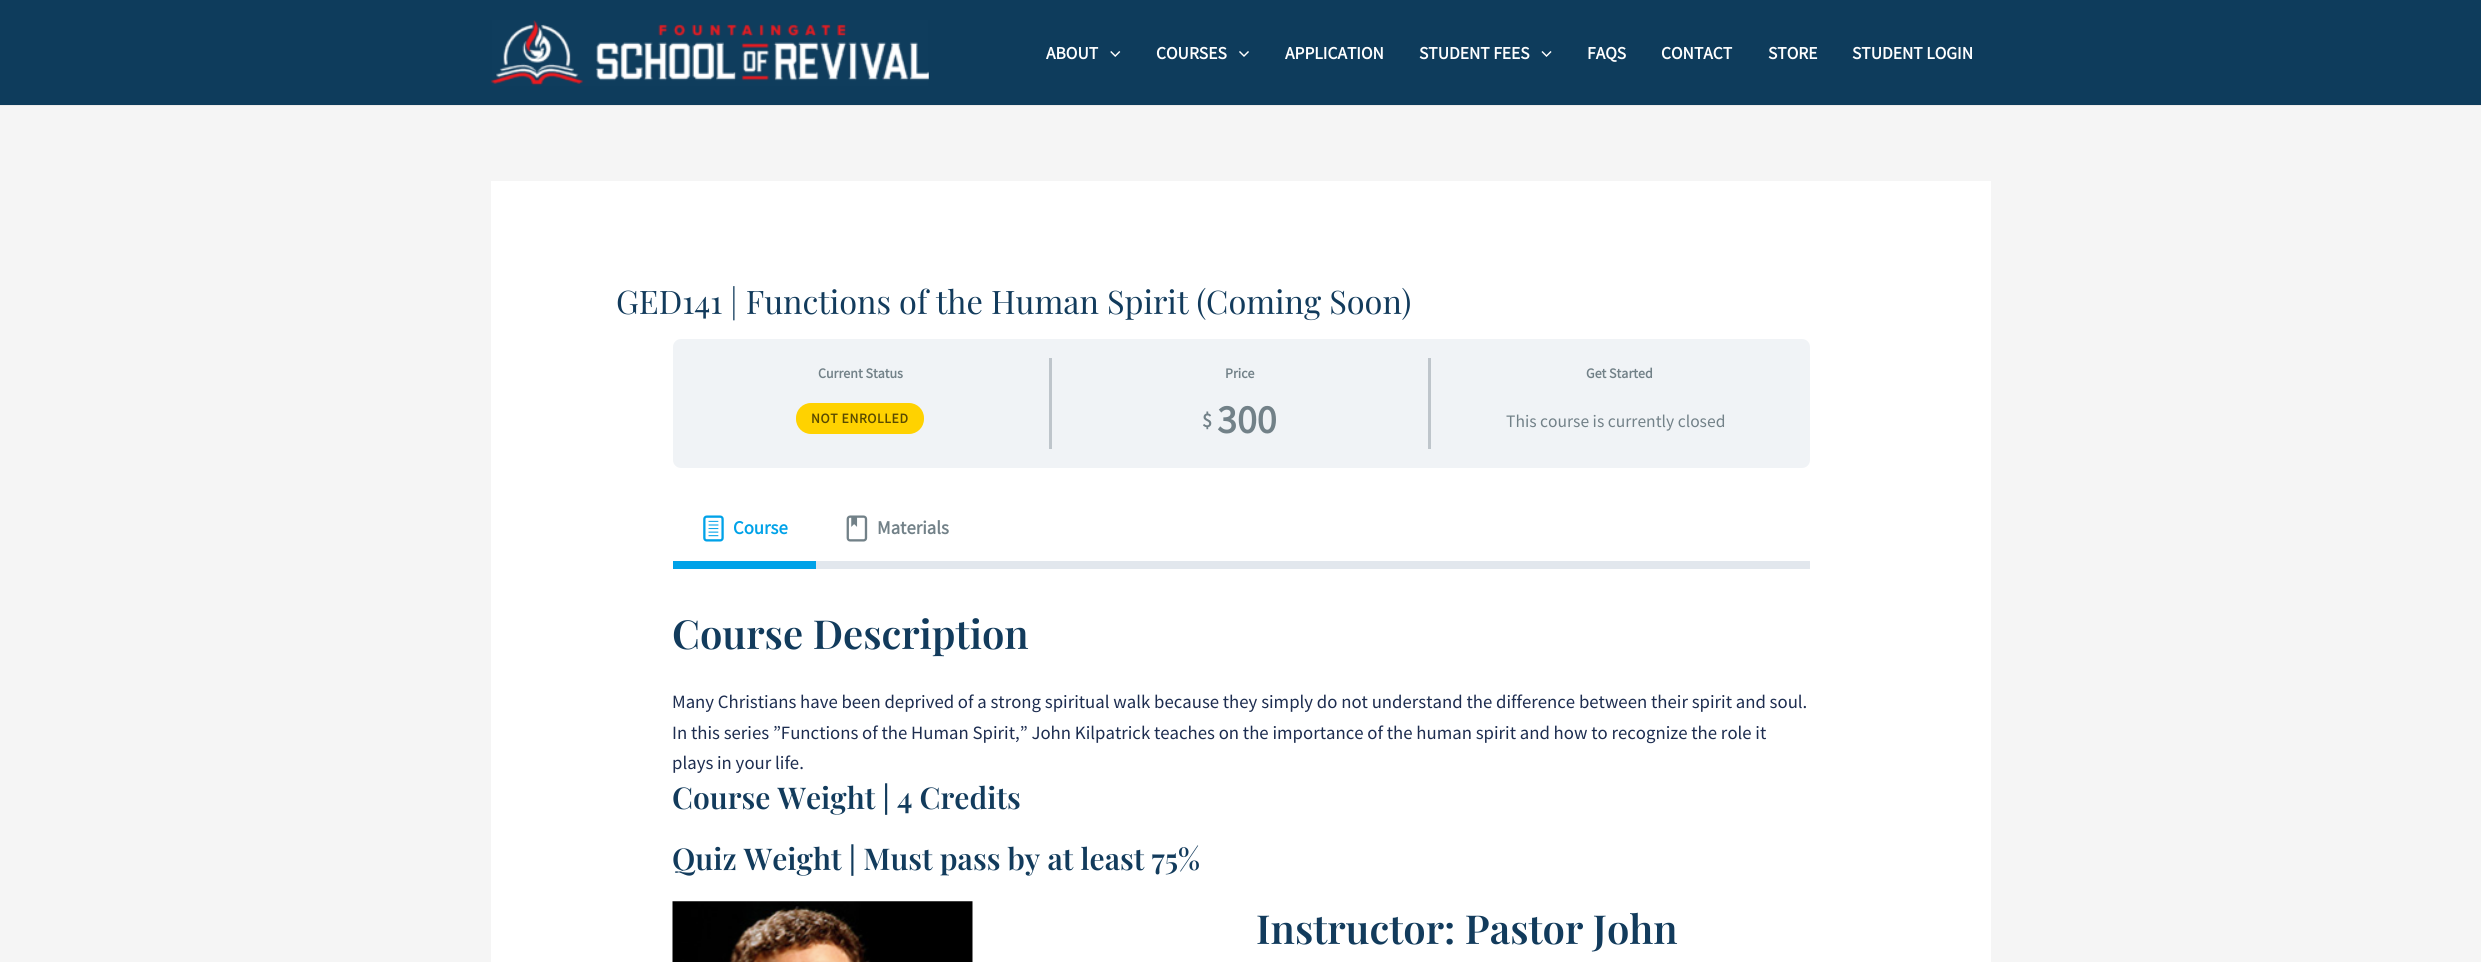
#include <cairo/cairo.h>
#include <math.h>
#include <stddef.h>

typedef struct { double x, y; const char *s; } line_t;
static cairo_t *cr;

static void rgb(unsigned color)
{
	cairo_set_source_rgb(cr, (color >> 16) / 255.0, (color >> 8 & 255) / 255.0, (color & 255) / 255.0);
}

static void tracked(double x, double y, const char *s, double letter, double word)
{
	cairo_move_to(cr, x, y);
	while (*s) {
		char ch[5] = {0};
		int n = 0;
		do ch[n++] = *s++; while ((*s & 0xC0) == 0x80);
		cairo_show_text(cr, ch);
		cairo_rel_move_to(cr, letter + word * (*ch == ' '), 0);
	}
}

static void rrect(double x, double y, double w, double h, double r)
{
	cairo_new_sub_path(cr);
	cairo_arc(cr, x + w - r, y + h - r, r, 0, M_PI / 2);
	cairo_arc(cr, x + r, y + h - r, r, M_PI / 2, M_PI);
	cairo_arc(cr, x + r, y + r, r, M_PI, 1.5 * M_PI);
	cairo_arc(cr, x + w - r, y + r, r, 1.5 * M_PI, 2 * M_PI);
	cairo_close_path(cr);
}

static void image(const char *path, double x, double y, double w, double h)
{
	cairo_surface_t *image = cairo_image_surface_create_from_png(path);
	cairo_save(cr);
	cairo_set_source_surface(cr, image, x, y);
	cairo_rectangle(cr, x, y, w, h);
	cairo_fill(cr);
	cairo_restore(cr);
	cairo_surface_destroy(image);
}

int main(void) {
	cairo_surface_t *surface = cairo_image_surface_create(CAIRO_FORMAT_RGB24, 2481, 962);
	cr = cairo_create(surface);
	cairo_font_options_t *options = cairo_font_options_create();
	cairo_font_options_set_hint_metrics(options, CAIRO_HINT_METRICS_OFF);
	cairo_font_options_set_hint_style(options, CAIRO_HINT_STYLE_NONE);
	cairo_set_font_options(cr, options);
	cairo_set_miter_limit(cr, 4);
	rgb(0xf5f5f5);
	cairo_paint(cr);
	rgb(0x0e3c5c);
	cairo_rectangle(cr, 0, 0, 2481, 105);
	cairo_fill(cr);
	rgb(0xeaeaea);
	cairo_rectangle(cr, 0, 105, 2481, 1);
	cairo_fill(cr);
	image("img/1.png", 491, 20, 438, 66);
	image("img/2.png", 1110, 51, 11, 6);
	image("img/3.png", 1239, 51, 10, 6);
	image("img/4.png", 1541, 51, 11, 6);
	rgb(0xffffff);
	cairo_rectangle(cr, 491, 181, 1500, 781);
	cairo_fill(cr);
	rgb(0xf0f3f6);
	rrect(673, 339, 1137, 129, 8);
	cairo_fill(cr);
	rgb(0xbec5cb);
	cairo_rectangle(cr, 1049, 358, 3, 91);
	cairo_fill(cr);
	rgb(0xffd200);
	rrect(796, 403, 128, 31, 15);
	cairo_fill(cr);
	rgb(0xbec5cb);
	cairo_rectangle(cr, 1428, 358, 3, 91);
	cairo_fill(cr);
	image("img/5.png", 703, 515, 21, 27);
	rgb(0x00a2e8);
	cairo_rectangle(cr, 673, 561, 143, 8);
	cairo_fill(cr);
	image("img/6.png", 846, 515, 22, 27);
	rgb(0xe2e7ed);
	cairo_rectangle(cr, 816, 561, 994, 8);
	cairo_fill(cr);
	image("img/7.png", 672, 901, 301, 61);
	cairo_select_font_face(cr, "Source Sans Pro", CAIRO_FONT_SLANT_NORMAL, CAIRO_FONT_WEIGHT_BOLD);
	cairo_set_font_size(cr, 17.5);
	rgb(0xffffff);
	{
		static const line_t items[] = {
			{1046, 59, "ABOUT"},
			{1156, 59, "COURSES"},
			{1285, 59, "APPLICATION"},
			{1419, 59, "STUDENT FEES"},
			{1587, 59, "FAQS"},
			{1661, 59, "CONTACT"},
			{1768, 59, "STORE"},
			{1852, 59, "STUDENT LOGIN"},
		};
		for (size_t i = 0; i < sizeof items / sizeof *items; i++) {
			cairo_move_to(cr, items[i].x, items[i].y);
			cairo_show_text(cr, items[i].s);
		}
	}
	cairo_select_font_face(cr, "Playfair Display", CAIRO_FONT_SLANT_NORMAL, CAIRO_FONT_WEIGHT_NORMAL);
	cairo_set_font_size(cr, 32.5);
	rgb(0x123b5c);
	cairo_move_to(cr, 616, 314);
	cairo_show_text(cr, "GED141 | Functions of the Human Spirit (Coming Soon)");
	cairo_select_font_face(cr, "Source Sans Pro", CAIRO_FONT_SLANT_NORMAL, CAIRO_FONT_WEIGHT_BOLD);
	cairo_set_font_size(cr, 14);
	rgb(0x728188);
	cairo_move_to(cr, 818, 378);
	cairo_show_text(cr, "Current Status");
	cairo_set_font_size(cr, 13.75);
	rgb(0x594a00);
	tracked(811, 423, "NOT ENROLLED", 0.6, 0);
	cairo_set_font_size(cr, 14);
	rgb(0x728188);
	cairo_move_to(cr, 1225, 378);
	cairo_show_text(cr, "Price");
	cairo_set_font_size(cr, 20);
	cairo_move_to(cr, 1202, 427);
	cairo_show_text(cr, "$");
	cairo_set_font_size(cr, 40);
	cairo_move_to(cr, 1217, 433);
	cairo_show_text(cr, "300");
	cairo_set_font_size(cr, 14);
	cairo_move_to(cr, 1586, 378);
	cairo_show_text(cr, "Get Started");
	cairo_select_font_face(cr, "Source Sans Pro", CAIRO_FONT_SLANT_NORMAL, CAIRO_FONT_WEIGHT_NORMAL);
	cairo_set_font_size(cr, 17.5);
	cairo_move_to(cr, 1506, 427);
	cairo_show_text(cr, "This course is currently closed");
	cairo_select_font_face(cr, "Source Sans Pro", CAIRO_FONT_SLANT_NORMAL, CAIRO_FONT_WEIGHT_BOLD);
	cairo_set_font_size(cr, 18.75);
	rgb(0x00a2e8);
	cairo_move_to(cr, 733, 534);
	cairo_show_text(cr, "Course");
	rgb(0x728188);
	cairo_move_to(cr, 877, 534);
	cairo_show_text(cr, "Materials");
	cairo_select_font_face(cr, "Playfair Display SemiBold", CAIRO_FONT_SLANT_NORMAL, CAIRO_FONT_WEIGHT_NORMAL);
	cairo_set_font_size(cr, 40);
	rgb(0x123b5c);
	cairo_move_to(cr, 672, 649);
	cairo_show_text(cr, "Course Description");
	cairo_select_font_face(cr, "Source Sans Pro", CAIRO_FONT_SLANT_NORMAL, CAIRO_FONT_WEIGHT_NORMAL);
	cairo_set_font_size(cr, 18.75);
	rgb(0x1d2d50);
	{
		static const line_t items[] = {
			{672, 708, "Many Christians have been deprived of a strong spiritual walk because they simply do not understand the difference between their spirit and soul."},
			{672, 739, "In this series ”Functions of the Human Spirit,” John Kilpatrick teaches on the importance of the human spirit and how to recognize the role it"},
			{672, 769, "plays in your life."},
		};
		for (size_t i = 0; i < sizeof items / sizeof *items; i++) {
			cairo_move_to(cr, items[i].x, items[i].y);
			cairo_show_text(cr, items[i].s);
		}
	}
	cairo_select_font_face(cr, "Playfair Display SemiBold", CAIRO_FONT_SLANT_NORMAL, CAIRO_FONT_WEIGHT_NORMAL);
	cairo_set_font_size(cr, 30);
	rgb(0x123b5c);
	cairo_move_to(cr, 672, 809);
	cairo_show_text(cr, "Course Weight | 4 Credits");
	cairo_move_to(cr, 672, 870);
	cairo_show_text(cr, "Quiz Weight | Must pass by at least 75%");
	cairo_set_font_size(cr, 40);
	cairo_move_to(cr, 1256, 944);
	cairo_show_text(cr, "Instructor: Pastor John");
	cairo_surface_write_to_png(surface, "page.png");
	cairo_font_options_destroy(options);
	cairo_destroy(cr);
	cairo_surface_destroy(surface);
	return 0;
}
